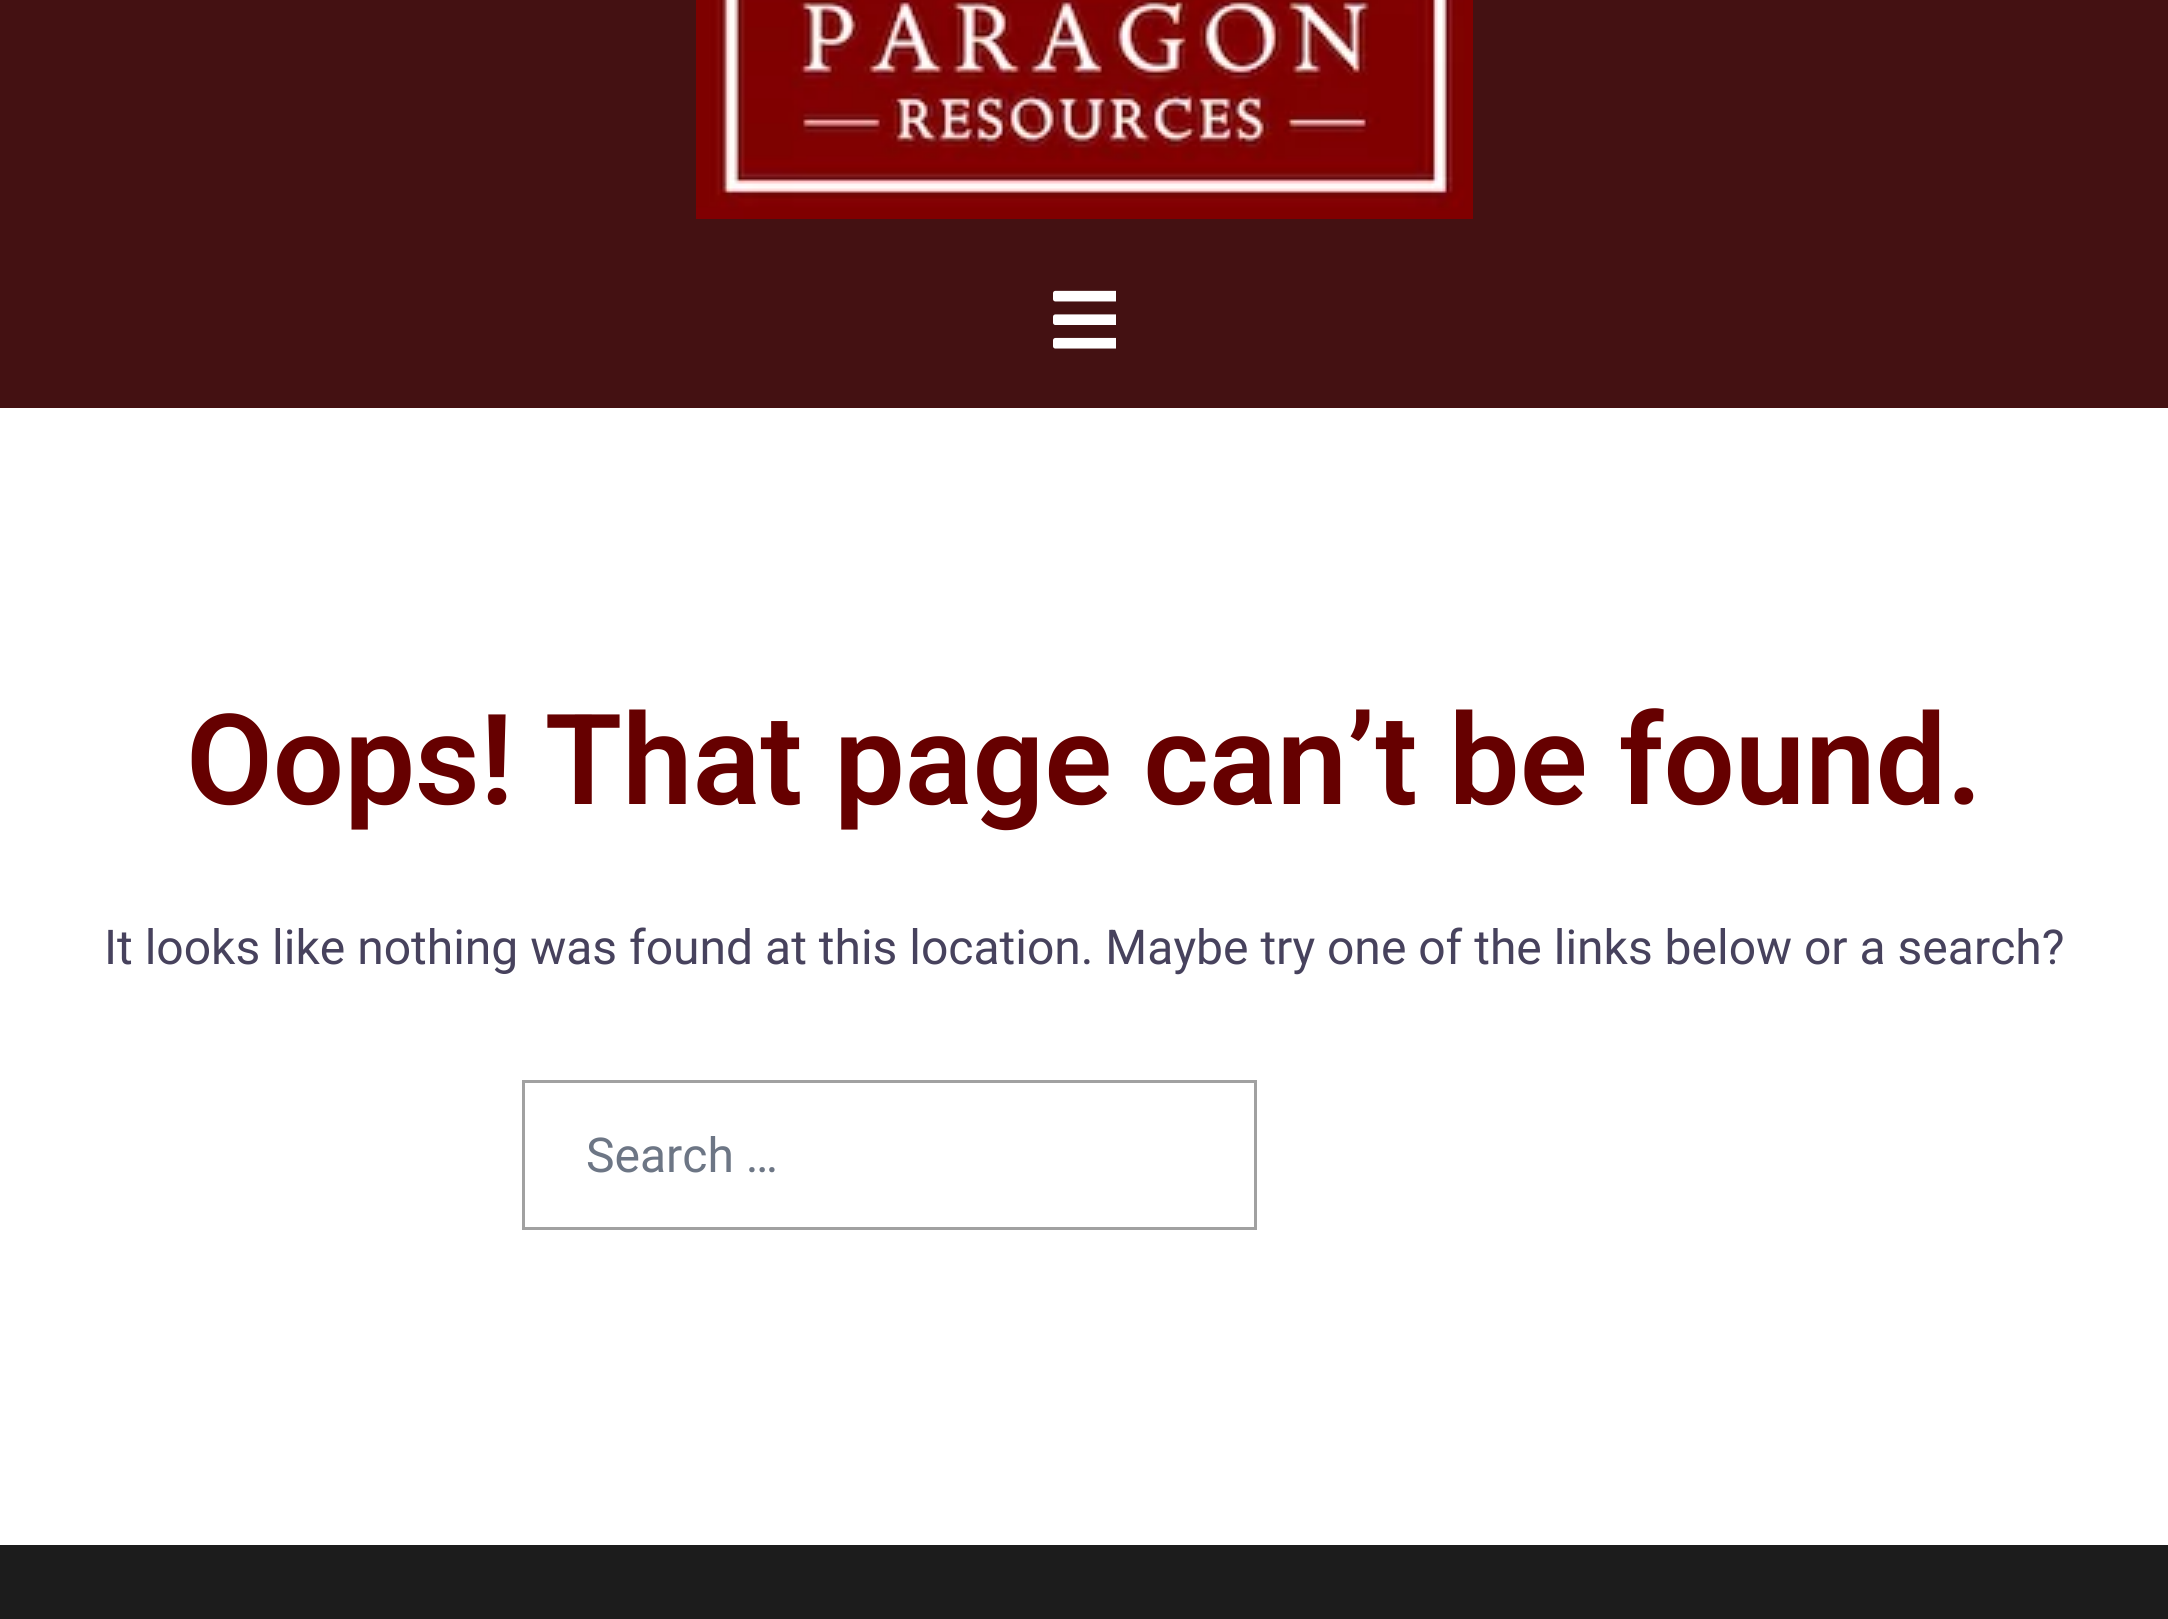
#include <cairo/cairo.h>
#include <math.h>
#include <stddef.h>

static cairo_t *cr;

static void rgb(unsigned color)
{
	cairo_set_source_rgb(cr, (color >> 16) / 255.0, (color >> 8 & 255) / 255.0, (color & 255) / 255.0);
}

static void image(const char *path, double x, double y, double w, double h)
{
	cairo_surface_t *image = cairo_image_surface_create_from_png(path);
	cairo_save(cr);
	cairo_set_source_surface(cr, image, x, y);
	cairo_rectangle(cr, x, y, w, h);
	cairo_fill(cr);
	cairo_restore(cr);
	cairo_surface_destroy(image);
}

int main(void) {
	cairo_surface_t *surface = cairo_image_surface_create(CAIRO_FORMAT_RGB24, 2168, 1619);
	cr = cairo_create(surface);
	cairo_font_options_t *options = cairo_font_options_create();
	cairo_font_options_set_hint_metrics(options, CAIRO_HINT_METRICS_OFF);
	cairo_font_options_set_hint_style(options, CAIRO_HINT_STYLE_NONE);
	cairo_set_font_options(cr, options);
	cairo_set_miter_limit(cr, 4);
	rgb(0xffffff);
	cairo_paint(cr);
	rgb(0x441112);
	cairo_rectangle(cr, 0, 0, 2168, 408);
	cairo_fill(cr);
	image("img/1.png", 696, 0, 777, 219);
	image("img/2.png", 1053, 290, 63, 59);
	cairo_rectangle(cr, 523.5, 1081.5, 732, 147);
	rgb(0xa1a1a1);
	cairo_set_line_width(cr, 3);
	cairo_stroke(cr);
	rgb(0x1c1c1c);
	cairo_rectangle(cr, 0, 1545, 2168, 74);
	cairo_fill(cr);
	cairo_select_font_face(cr, "Roboto SemiBold", CAIRO_FONT_SLANT_NORMAL, CAIRO_FONT_WEIGHT_NORMAL);
	cairo_set_font_size(cr, 126);
	rgb(0x660000);
	cairo_move_to(cr, 186, 804);
	cairo_show_text(cr, "Oops! That page can’t be found.");
	cairo_select_font_face(cr, "Roboto", CAIRO_FONT_SLANT_NORMAL, CAIRO_FONT_WEIGHT_NORMAL);
	cairo_set_font_size(cr, 48);
	rgb(0x47425d);
	cairo_move_to(cr, 104, 964);
	cairo_show_text(cr, "It looks like nothing was found at this location. Maybe try one of the links below or a search?");
	rgb(0x6d7685);
	cairo_move_to(cr, 586, 1172);
	cairo_show_text(cr, "Search …");
	cairo_surface_write_to_png(surface, "page.png");
	cairo_font_options_destroy(options);
	cairo_destroy(cr);
	cairo_surface_destroy(surface);
	return 0;
}
